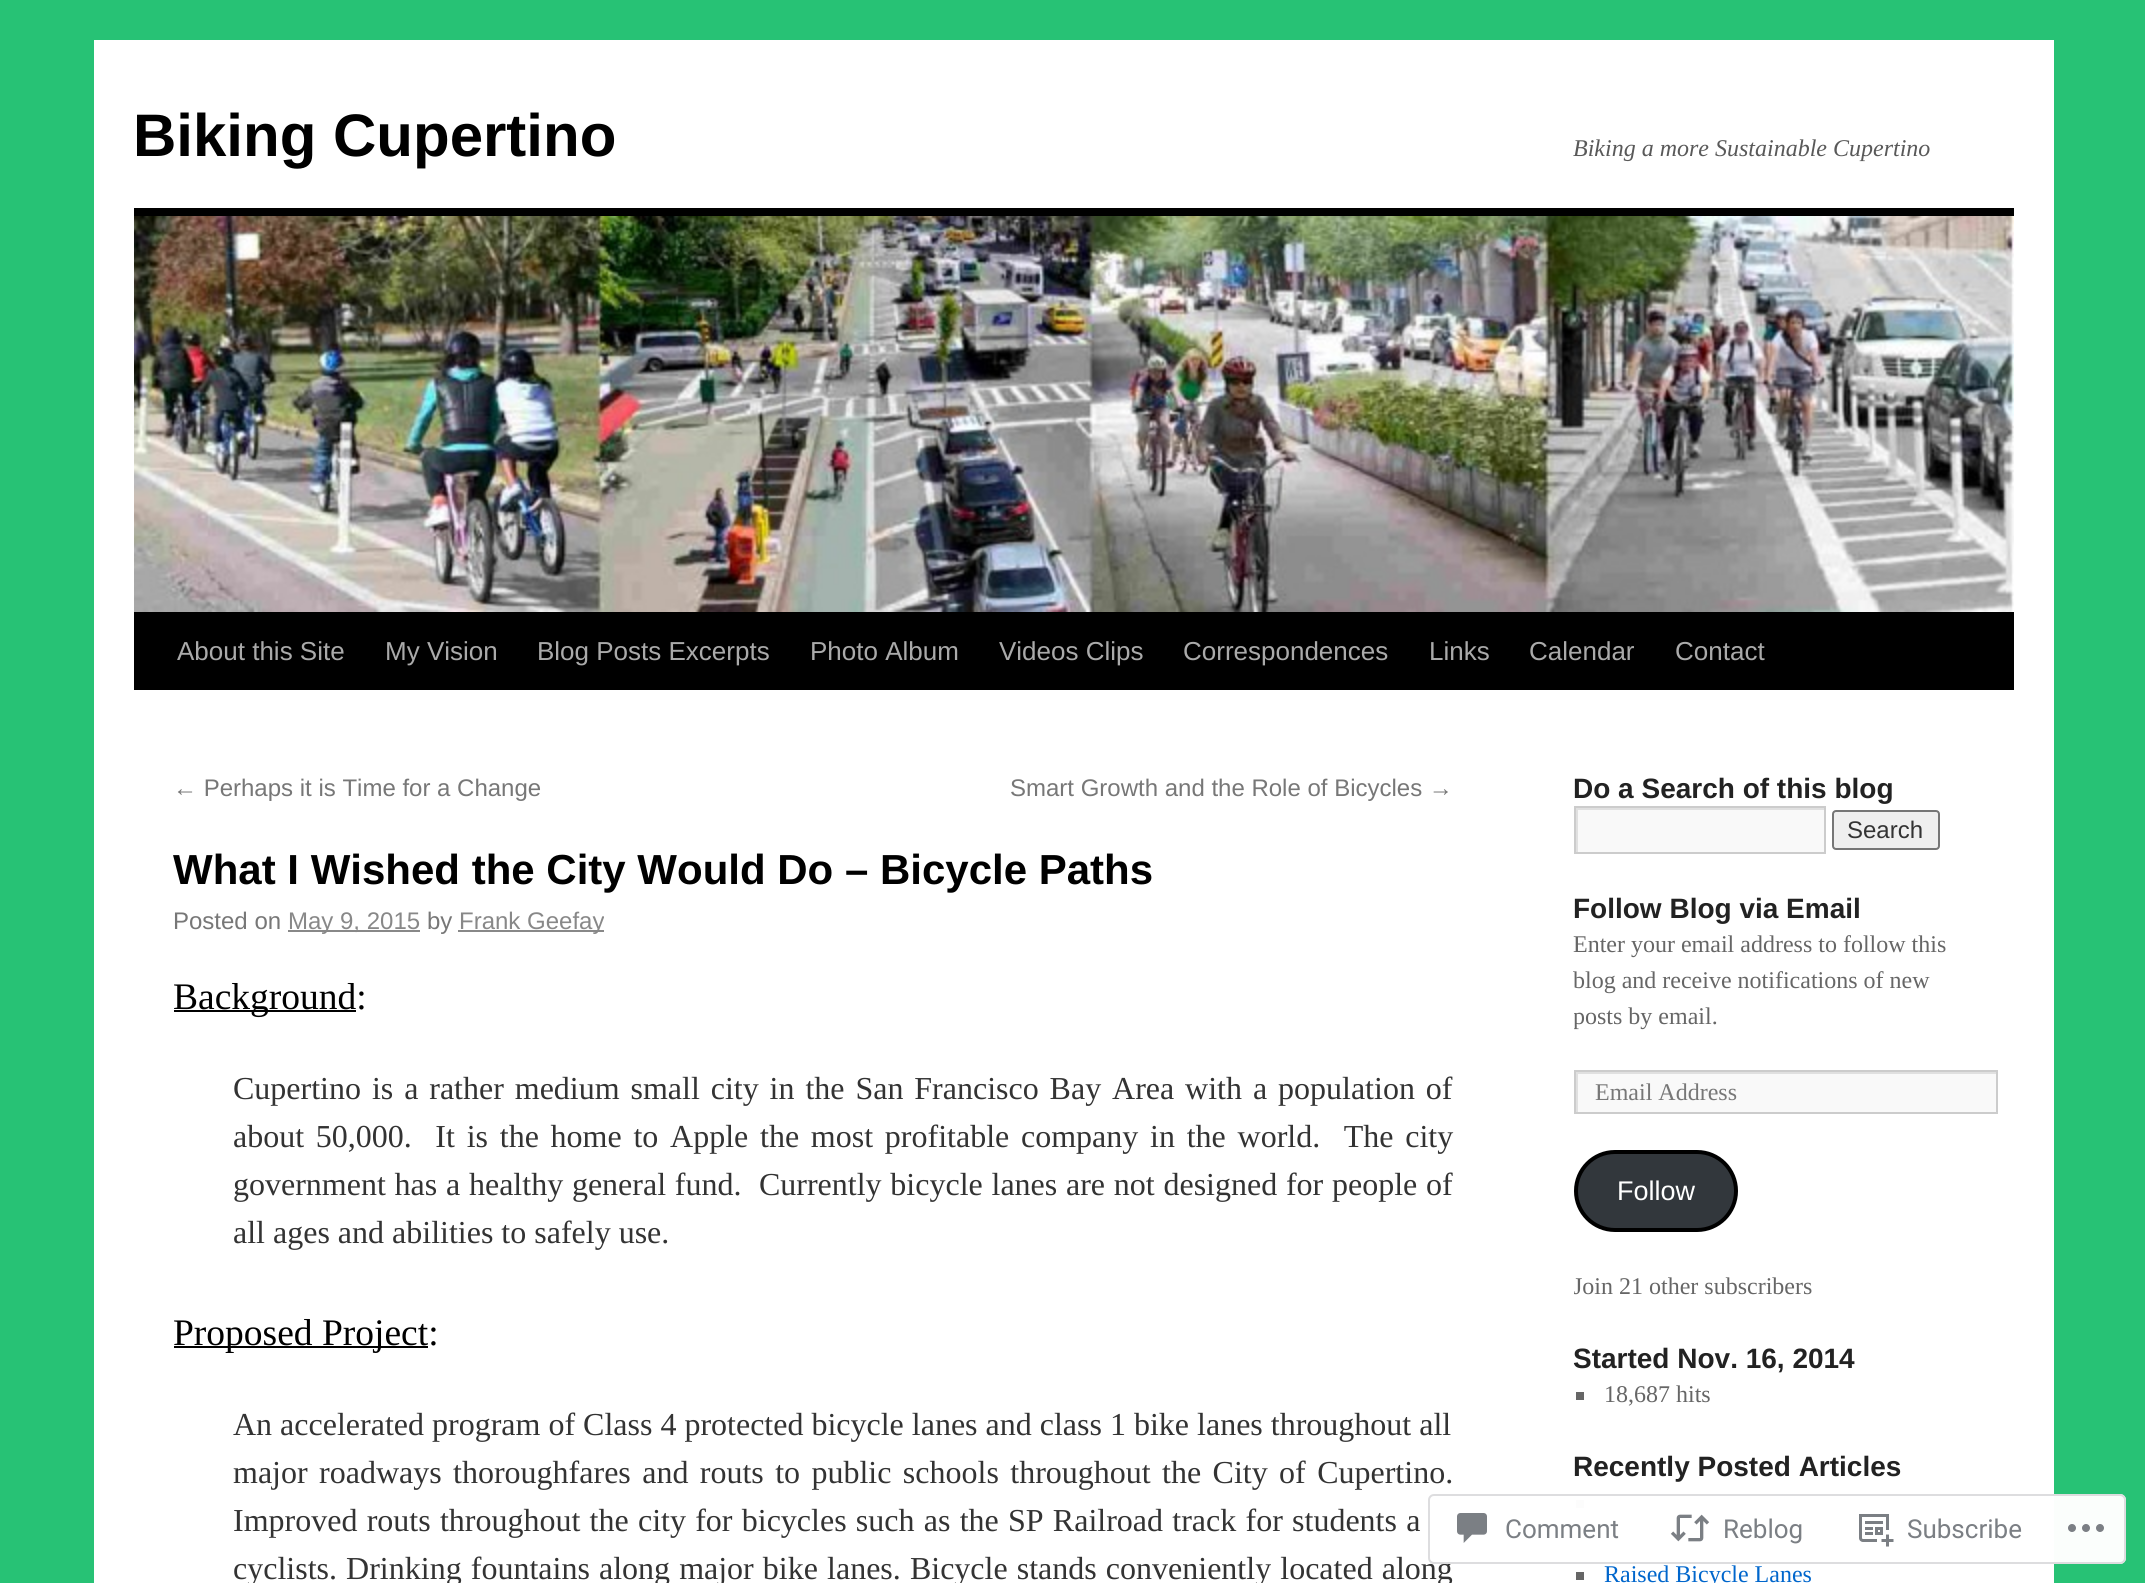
#include <cairo/cairo.h>
#include <math.h>
#include <stddef.h>

typedef struct { double x, y; const char *s; } line_t;
typedef struct { double x, y, w, h; unsigned color; } box_t;
static cairo_t *cr;

static void rgb(unsigned color)
{
	cairo_set_source_rgb(cr, (color >> 16) / 255.0, (color >> 8 & 255) / 255.0, (color & 255) / 255.0);
}

static void tracked(double x, double y, const char *s, double letter, double word)
{
	cairo_move_to(cr, x, y);
	while (*s) {
		char ch[5] = {0};
		int n = 0;
		do ch[n++] = *s++; while ((*s & 0xC0) == 0x80);
		cairo_show_text(cr, ch);
		cairo_rel_move_to(cr, letter + word * (*ch == ' '), 0);
	}
}

static void rrect(double x, double y, double w, double h, double r)
{
	cairo_new_sub_path(cr);
	cairo_arc(cr, x + w - r, y + h - r, r, 0, M_PI / 2);
	cairo_arc(cr, x + r, y + h - r, r, M_PI / 2, M_PI);
	cairo_arc(cr, x + r, y + r, r, M_PI, 1.5 * M_PI);
	cairo_arc(cr, x + w - r, y + r, r, 1.5 * M_PI, 2 * M_PI);
	cairo_close_path(cr);
}

static void image(const char *path, double x, double y, double w, double h)
{
	cairo_surface_t *image = cairo_image_surface_create_from_png(path);
	cairo_save(cr);
	cairo_set_source_surface(cr, image, x, y);
	cairo_rectangle(cr, x, y, w, h);
	cairo_fill(cr);
	cairo_restore(cr);
	cairo_surface_destroy(image);
}

int main(void) {
	cairo_surface_t *surface = cairo_image_surface_create(CAIRO_FORMAT_RGB24, 2145, 1583);
	cr = cairo_create(surface);
	cairo_font_options_t *options = cairo_font_options_create();
	cairo_font_options_set_hint_metrics(options, CAIRO_HINT_METRICS_OFF);
	cairo_font_options_set_hint_style(options, CAIRO_HINT_STYLE_NONE);
	cairo_set_font_options(cr, options);
	cairo_set_miter_limit(cr, 4);
	rgb(0x27c275);
	cairo_paint(cr);
	{
		static const box_t items[] = {
			{94, 40, 1960, 1543, 0xffffff},
			{134, 208, 1880, 8, 0x000000},
			{134, 612, 1880, 78, 0x000000},
		};
		for (size_t i = 0; i < sizeof items / sizeof *items; i++) {
			rgb(items[i].color);
			cairo_rectangle(cr, items[i].x, items[i].y, items[i].w, items[i].h);
			cairo_fill(cr);
		}
	}
	image("img/1.png", 134, 216, 1880, 396);
	{
		static const box_t items[] = {
			{288, 930, 132, 2, 0x888888},
			{458, 930, 146, 2, 0x888888},
			{174, 1010, 182, 2, 0x000000},
			{174, 1346, 254, 2, 0x000000},
			{1578, 810, 246, 42, 0xf9f9f9},
		};
		for (size_t i = 0; i < sizeof items / sizeof *items; i++) {
			rgb(items[i].color);
			cairo_rectangle(cr, items[i].x, items[i].y, items[i].w, items[i].h);
			cairo_fill(cr);
		}
	}
	cairo_save(cr);
	cairo_rectangle(cr, 1576, 808, 248, 44);
	cairo_clip(cr);
	rgb(0xe0e0e0);
	cairo_set_fill_rule(cr, CAIRO_FILL_RULE_EVEN_ODD);
	cairo_new_path(cr);
	cairo_move_to(cr, 1378, 610);
	cairo_line_to(cr, 2022, 610);
	cairo_line_to(cr, 2022, 1050);
	cairo_line_to(cr, 1378, 1050);
	cairo_close_path(cr);
	cairo_move_to(cr, 1578, 810);
	cairo_line_to(cr, 1826, 810);
	cairo_line_to(cr, 1826, 854);
	cairo_line_to(cr, 1578, 854);
	cairo_close_path(cr);
	cairo_fill(cr);
	cairo_restore(cr);
	cairo_rectangle(cr, 1575, 807, 250, 46);
	rgb(0xcccccc);
	cairo_stroke(cr);
	rgb(0xefefef);
	rrect(1833, 811, 106, 38, 3);
	cairo_fill_preserve(cr);
	rgb(0x767676);
	cairo_stroke(cr);
	rgb(0xf9f9f9);
	cairo_rectangle(cr, 1578, 1074, 418, 38);
	cairo_fill(cr);
	cairo_save(cr);
	cairo_rectangle(cr, 1576, 1072, 420, 40);
	cairo_clip(cr);
	rgb(0xe0e0e0);
	cairo_set_fill_rule(cr, CAIRO_FILL_RULE_EVEN_ODD);
	cairo_new_path(cr);
	cairo_move_to(cr, 1378, 874);
	cairo_line_to(cr, 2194, 874);
	cairo_line_to(cr, 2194, 1310);
	cairo_line_to(cr, 1378, 1310);
	cairo_close_path(cr);
	cairo_move_to(cr, 1578, 1074);
	cairo_line_to(cr, 1998, 1074);
	cairo_line_to(cr, 1998, 1114);
	cairo_line_to(cr, 1578, 1114);
	cairo_close_path(cr);
	cairo_fill(cr);
	cairo_restore(cr);
	cairo_rectangle(cr, 1575, 1071, 422, 42);
	rgb(0xcccccc);
	cairo_stroke(cr);
	rgb(0x32373c);
	rrect(1576, 1152, 160, 78, 39);
	cairo_fill_preserve(cr);
	rgb(0x000000);
	cairo_set_line_width(cr, 4);
	cairo_stroke(cr);
	{
		static const box_t items[] = {
			{1576, 1392, 8, 8, 0x666666},
			{1576, 1500, 8, 8, 0x666666},
			{1576, 1572, 8, 8, 0x666666},
		};
		for (size_t i = 0; i < sizeof items / sizeof *items; i++) {
			rgb(items[i].color);
			cairo_rectangle(cr, items[i].x, items[i].y, items[i].w, items[i].h);
			cairo_fill(cr);
		}
	}
	cairo_select_font_face(cr, "Liberation Sans", CAIRO_FONT_SLANT_NORMAL, CAIRO_FONT_WEIGHT_BOLD);
	cairo_set_font_size(cr, 60);
	rgb(0x000000);
	cairo_move_to(cr, 133, 156);
	cairo_show_text(cr, "Biking Cupertino");
	cairo_select_font_face(cr, "Liberation Serif", CAIRO_FONT_SLANT_ITALIC, CAIRO_FONT_WEIGHT_NORMAL);
	cairo_set_font_size(cr, 24);
	rgb(0x595959);
	cairo_move_to(cr, 1573, 156);
	cairo_show_text(cr, "Biking a more Sustainable Cupertino");
	cairo_select_font_face(cr, "Liberation Sans", CAIRO_FONT_SLANT_NORMAL, CAIRO_FONT_WEIGHT_NORMAL);
	cairo_set_font_size(cr, 26);
	rgb(0xaaaaaa);
	{
		static const line_t items[] = {
			{177, 660, "About this Site"},
			{385, 660, "My Vision"},
			{537, 660, "Blog Posts Excerpts"},
			{810, 660, "Photo Album"},
			{999, 660, "Videos Clips"},
			{1183, 660, "Correspondences"},
			{1429, 660, "Links"},
			{1529, 660, "Calendar"},
			{1675, 660, "Contact"},
		};
		for (size_t i = 0; i < sizeof items / sizeof *items; i++) {
			cairo_move_to(cr, items[i].x, items[i].y);
			cairo_show_text(cr, items[i].s);
		}
	}
	cairo_set_font_size(cr, 24);
	rgb(0x777777);
	cairo_move_to(cr, 173, 796);
	cairo_show_text(cr, "← Perhaps it is Time for a Change");
	cairo_move_to(cr, 1010, 796);
	cairo_show_text(cr, "Smart Growth and the Role of Bicycles →");
	cairo_select_font_face(cr, "Liberation Sans", CAIRO_FONT_SLANT_NORMAL, CAIRO_FONT_WEIGHT_BOLD);
	cairo_set_font_size(cr, 42);
	rgb(0x000000);
	cairo_move_to(cr, 173, 884);
	cairo_show_text(cr, "What I Wished the City Would Do – Bicycle Paths");
	cairo_select_font_face(cr, "Liberation Sans", CAIRO_FONT_SLANT_NORMAL, CAIRO_FONT_WEIGHT_NORMAL);
	cairo_set_font_size(cr, 24);
	rgb(0x777777);
	cairo_move_to(cr, 173, 929);
	cairo_show_text(cr, "Posted on");
	rgb(0x888888);
	cairo_move_to(cr, 288, 929);
	cairo_show_text(cr, "May 9, 2015");
	rgb(0x777777);
	cairo_move_to(cr, 427, 929);
	cairo_show_text(cr, "by");
	rgb(0x888888);
	cairo_move_to(cr, 459, 929);
	cairo_show_text(cr, "Frank Geefay");
	cairo_select_font_face(cr, "Liberation Serif", CAIRO_FONT_SLANT_NORMAL, CAIRO_FONT_WEIGHT_NORMAL);
	cairo_set_font_size(cr, 37.5);
	rgb(0x000000);
	cairo_move_to(cr, 173, 1009);
	cairo_show_text(cr, "Background:");
	cairo_set_font_size(cr, 32);
	rgb(0x333333);
	tracked(233, 1099, "Cupertino is a rather medium small city in the San Francisco Bay Area with a population of", 0, 2.9);
	tracked(233, 1147, "about 50,000.  It is the home to Apple the most profitable company in the world.  The city", 0, 3.75);
	tracked(233, 1195, "government has a healthy general fund.  Currently bicycle lanes are not designed for people of", 0, 0.75);
	cairo_move_to(cr, 233, 1243);
	cairo_show_text(cr, "all ages and abilities to safely use.");
	cairo_set_font_size(cr, 37.5);
	rgb(0x000000);
	cairo_move_to(cr, 173, 1345);
	cairo_show_text(cr, "Proposed Project:");
	cairo_set_font_size(cr, 32);
	rgb(0x333333);
	cairo_move_to(cr, 233, 1435);
	cairo_show_text(cr, "An accelerated program of Class 4 protected bicycle lanes and class 1 bike lanes throughout all");
	tracked(233, 1483, "major roadways thoroughfares and routs to public schools throughout the City of Cupertino.", 0, 3.4);
	tracked(233, 1531, "Improved routs throughout the city for bicycles such as the SP Railroad track for students a", 0, 1.25);
	tracked(233, 1579, "cyclists. Drinking fountains along major bike lanes. Bicycle stands conveniently located along", 0, 1.1);
	cairo_select_font_face(cr, "Liberation Sans", CAIRO_FONT_SLANT_NORMAL, CAIRO_FONT_WEIGHT_BOLD);
	cairo_set_font_size(cr, 28);
	rgb(0x222222);
	cairo_move_to(cr, 1573, 798);
	cairo_show_text(cr, "Do a Search of this blog");
	cairo_select_font_face(cr, "Liberation Sans", CAIRO_FONT_SLANT_NORMAL, CAIRO_FONT_WEIGHT_NORMAL);
	cairo_set_font_size(cr, 24);
	rgb(0x333333);
	cairo_move_to(cr, 1847, 838);
	cairo_show_text(cr, "Search");
	cairo_select_font_face(cr, "Liberation Sans", CAIRO_FONT_SLANT_NORMAL, CAIRO_FONT_WEIGHT_BOLD);
	cairo_set_font_size(cr, 28);
	rgb(0x222222);
	cairo_move_to(cr, 1573, 918);
	cairo_show_text(cr, "Follow Blog via Email");
	cairo_select_font_face(cr, "Liberation Serif", CAIRO_FONT_SLANT_NORMAL, CAIRO_FONT_WEIGHT_NORMAL);
	cairo_set_font_size(cr, 24);
	rgb(0x666666);
	cairo_move_to(cr, 1573, 952);
	cairo_show_text(cr, "Enter your email address to follow this");
	cairo_move_to(cr, 1573, 988);
	cairo_show_text(cr, "blog and receive notifications of new");
	cairo_save(cr);
	cairo_rectangle(cr, 1574, 770, 440, 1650);
	cairo_clip(cr);
	cairo_move_to(cr, 1573, 1024);
	cairo_show_text(cr, "posts by email.");
	cairo_restore(cr);
	rgb(0x777777);
	cairo_move_to(cr, 1595, 1100);
	cairo_show_text(cr, "Email Address");
	cairo_select_font_face(cr, "Liberation Sans", CAIRO_FONT_SLANT_NORMAL, CAIRO_FONT_WEIGHT_NORMAL);
	cairo_set_font_size(cr, 27);
	rgb(0xffffff);
	cairo_move_to(cr, 1617, 1200);
	cairo_show_text(cr, "Follow");
	cairo_save(cr);
	cairo_rectangle(cr, 1574, 770, 440, 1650);
	cairo_clip(cr);
	cairo_select_font_face(cr, "Liberation Serif", CAIRO_FONT_SLANT_NORMAL, CAIRO_FONT_WEIGHT_NORMAL);
	cairo_set_font_size(cr, 24);
	rgb(0x666666);
	cairo_move_to(cr, 1573, 1294);
	cairo_show_text(cr, "Join 21 other subscribers");
	cairo_restore(cr);
	cairo_select_font_face(cr, "Liberation Sans", CAIRO_FONT_SLANT_NORMAL, CAIRO_FONT_WEIGHT_BOLD);
	cairo_set_font_size(cr, 28);
	rgb(0x222222);
	cairo_move_to(cr, 1573, 1368);
	cairo_show_text(cr, "Started Nov. 16, 2014");
	cairo_select_font_face(cr, "Liberation Serif", CAIRO_FONT_SLANT_NORMAL, CAIRO_FONT_WEIGHT_NORMAL);
	cairo_set_font_size(cr, 24);
	rgb(0x666666);
	cairo_move_to(cr, 1604, 1402);
	cairo_show_text(cr, "18,687 hits");
	cairo_select_font_face(cr, "Liberation Sans", CAIRO_FONT_SLANT_NORMAL, CAIRO_FONT_WEIGHT_BOLD);
	cairo_set_font_size(cr, 28);
	rgb(0x222222);
	cairo_move_to(cr, 1573, 1476);
	cairo_show_text(cr, "Recently Posted Articles");
	cairo_select_font_face(cr, "Liberation Serif", CAIRO_FONT_SLANT_NORMAL, CAIRO_FONT_WEIGHT_NORMAL);
	cairo_set_font_size(cr, 24);
	rgb(0x0066cc);
	cairo_move_to(cr, 1604, 1582);
	cairo_show_text(cr, "Raised Bicycle Lanes");
	cairo_set_source_rgba(cr, 1, 1, 1, 0.98);
	rrect(1428, 1494, 698, 70, 6);
	cairo_fill(cr);
	rrect(1429, 1495, 696, 68, 5);
	cairo_set_source_rgba(cr, 0.863, 0.863, 0.871, 0.98);
	cairo_set_line_width(cr, 2);
	cairo_stroke(cr);
	image("img/2.png", 1457, 1513, 30, 30);
	cairo_select_font_face(cr, "Roboto", CAIRO_FONT_SLANT_NORMAL, CAIRO_FONT_WEIGHT_NORMAL);
	cairo_set_font_size(cr, 26);
	rgb(0x7b7f84);
	cairo_move_to(cr, 1505, 1538);
	cairo_show_text(cr, "Comment");
	image("img/3.png", 1670, 1514, 40, 28);
	cairo_move_to(cr, 1723, 1538);
	cairo_show_text(cr, "Reblog");
	image("img/4.png", 1859, 1514, 35, 33);
	cairo_move_to(cr, 1907, 1538);
	cairo_show_text(cr, "Subscribe");
	image("img/5.png", 2068, 1524, 36, 8);
	cairo_surface_write_to_png(surface, "page.png");
	cairo_font_options_destroy(options);
	cairo_destroy(cr);
	cairo_surface_destroy(surface);
	return 0;
}
